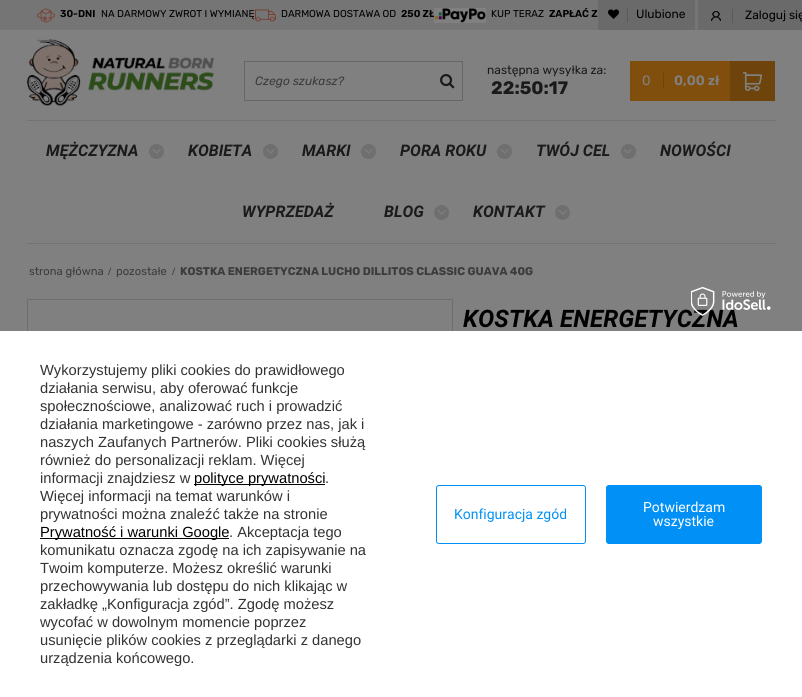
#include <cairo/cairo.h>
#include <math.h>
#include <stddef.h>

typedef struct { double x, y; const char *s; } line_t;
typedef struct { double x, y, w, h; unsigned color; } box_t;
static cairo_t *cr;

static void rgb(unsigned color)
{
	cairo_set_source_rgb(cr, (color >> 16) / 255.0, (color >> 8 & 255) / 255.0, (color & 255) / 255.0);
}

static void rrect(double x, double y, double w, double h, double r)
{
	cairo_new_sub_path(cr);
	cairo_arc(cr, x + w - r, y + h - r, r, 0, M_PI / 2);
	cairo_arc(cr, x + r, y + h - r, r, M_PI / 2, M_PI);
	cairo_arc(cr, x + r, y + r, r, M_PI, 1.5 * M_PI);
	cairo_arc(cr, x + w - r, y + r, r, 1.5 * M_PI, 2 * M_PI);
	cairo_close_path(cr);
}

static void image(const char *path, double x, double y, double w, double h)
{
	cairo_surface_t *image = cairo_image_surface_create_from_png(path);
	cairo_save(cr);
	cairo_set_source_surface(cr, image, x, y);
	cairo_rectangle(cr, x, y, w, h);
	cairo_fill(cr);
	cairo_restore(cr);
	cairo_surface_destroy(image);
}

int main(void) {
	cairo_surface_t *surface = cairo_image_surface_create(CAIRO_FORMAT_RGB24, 802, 697);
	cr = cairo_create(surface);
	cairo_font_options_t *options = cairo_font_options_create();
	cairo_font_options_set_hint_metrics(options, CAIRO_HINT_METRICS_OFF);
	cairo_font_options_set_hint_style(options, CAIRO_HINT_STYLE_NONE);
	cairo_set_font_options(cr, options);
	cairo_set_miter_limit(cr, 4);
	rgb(0x808080);
	cairo_paint(cr);
	rgb(0x757575);
	cairo_rectangle(cr, 0, 0, 598, 30);
	cairo_fill(cr);
	image("img/1.png", 37, 8, 18, 15);
	image("img/2.png", 255, 9, 21, 13);
	{
		static const box_t items[] = {
			{598, 0, 97, 30, 0x6a6a6a},
			{695, 0, 3, 30, 0x757575},
			{627, 8, 1, 14, 0x5a5a5a},
		};
		for (size_t i = 0; i < sizeof items / sizeof *items; i++) {
			rgb(items[i].color);
			cairo_rectangle(cr, items[i].x, items[i].y, items[i].w, items[i].h);
			cairo_fill(cr);
		}
	}
	image("img/4.png", 608, 9, 11, 10);
	rgb(0x6a6a6a);
	cairo_rectangle(cr, 698, 0, 104, 30);
	cairo_fill(cr);
	image("img/5.png", 711, 11, 10, 10);
	rgb(0x5a5a5a);
	cairo_rectangle(cr, 732, 9, 1, 14);
	cairo_fill(cr);
	image("img/6.png", 27, 39, 187, 67);
	cairo_rectangle(cr, 244.5, 61.5, 218, 39);
	rgb(0x666666);
	cairo_set_line_width(cr, 1);
	cairo_stroke(cr);
	image("img/7.png", 440, 74, 15, 15);
	{
		static const box_t items[] = {
			{630, 61, 100, 40, 0x804f0e},
			{663, 73, 1, 15, 0x6e440c},
			{730, 61, 45, 40, 0x6e440c},
		};
		for (size_t i = 0; i < sizeof items / sizeof *items; i++) {
			rgb(items[i].color);
			cairo_rectangle(cr, items[i].x, items[i].y, items[i].w, items[i].h);
			cairo_fill(cr);
		}
	}
	image("img/8.png", 743, 72, 19, 19);
	rgb(0x737373);
	cairo_rectangle(cr, 27, 120, 749, 1);
	cairo_fill(cr);
	cairo_rectangle(cr, 27, 243, 749, 1);
	cairo_fill(cr);
	rgb(0x6f6f6f);
	cairo_arc(cr, 156.5, 151.5, 7.5, 0, 2 * M_PI);
	cairo_fill(cr);
	image("img/9.png", 152, 149, 9, 5);
	cairo_arc(cr, 270.5, 151.5, 7.5, 0, 2 * M_PI);
	cairo_fill(cr);
	image("img/9.png", 266, 149, 9, 5);
	cairo_arc(cr, 368.5, 151.5, 7.5, 0, 2 * M_PI);
	cairo_fill(cr);
	image("img/9.png", 364, 149, 9, 5);
	cairo_arc(cr, 504.5, 151.5, 7.5, 0, 2 * M_PI);
	cairo_fill(cr);
	image("img/9.png", 500, 149, 9, 5);
	cairo_arc(cr, 628.5, 151.5, 7.5, 0, 2 * M_PI);
	cairo_fill(cr);
	image("img/9.png", 623, 149, 9, 5);
	cairo_arc(cr, 441.5, 212.5, 7.5, 0, 2 * M_PI);
	cairo_fill(cr);
	image("img/9.png", 437, 210, 9, 5);
	cairo_arc(cr, 562.5, 212.5, 7.5, 0, 2 * M_PI);
	cairo_fill(cr);
	image("img/9.png", 558, 210, 9, 5);
	cairo_rectangle(cr, 27.5, 299.5, 425, 277);
	rgb(0x6e6e6e);
	cairo_stroke(cr);
	{
		static const box_t items[] = {
			{0, 331, 802, 366, 0xffffff},
			{194, 484, 131, 1, 0x000000},
			{40, 538, 189, 1, 0x000000},
		};
		for (size_t i = 0; i < sizeof items / sizeof *items; i++) {
			rgb(items[i].color);
			cairo_rectangle(cr, items[i].x, items[i].y, items[i].w, items[i].h);
			cairo_fill(cr);
		}
	}
	rrect(436.5, 485.5, 149, 58, 2.5);
	rgb(0x0090f6);
	cairo_stroke(cr);
	rrect(606.5, 485.5, 155, 58, 2.5);
	cairo_fill_preserve(cr);
	cairo_stroke(cr);
	cairo_select_font_face(cr, "Rubik SemiBold", CAIRO_FONT_SLANT_NORMAL, CAIRO_FONT_WEIGHT_NORMAL);
	cairo_set_font_size(cr, 10);
	rgb(0x000000);
	cairo_move_to(cr, 60, 17);
	cairo_show_text(cr, "30-DNI");
	cairo_select_font_face(cr, "Rubik", CAIRO_FONT_SLANT_NORMAL, CAIRO_FONT_WEIGHT_NORMAL);
	cairo_move_to(cr, 101, 17);
	cairo_show_text(cr, "NA DARMOWY ZWROT I WYMIANĘ");
	cairo_move_to(cr, 281, 17);
	cairo_show_text(cr, "DARMOWA DOSTAWA OD");
	cairo_select_font_face(cr, "Rubik SemiBold", CAIRO_FONT_SLANT_NORMAL, CAIRO_FONT_WEIGHT_NORMAL);
	cairo_move_to(cr, 401, 17);
	cairo_show_text(cr, "250 ZŁ");
	image("img/3.png", 434, 8, 52, 15);
	cairo_select_font_face(cr, "Rubik", CAIRO_FONT_SLANT_NORMAL, CAIRO_FONT_WEIGHT_NORMAL);
	cairo_move_to(cr, 491, 17);
	cairo_show_text(cr, "KUP TERAZ");
	cairo_select_font_face(cr, "Rubik SemiBold", CAIRO_FONT_SLANT_NORMAL, CAIRO_FONT_WEIGHT_NORMAL);
	cairo_move_to(cr, 549, 17);
	cairo_show_text(cr, "ZAPŁAĆ Z");
	cairo_select_font_face(cr, "Rubik", CAIRO_FONT_SLANT_NORMAL, CAIRO_FONT_WEIGHT_NORMAL);
	cairo_set_font_size(cr, 12);
	cairo_move_to(cr, 636, 18);
	cairo_show_text(cr, "Ulubione");
	cairo_move_to(cr, 745, 19);
	cairo_show_text(cr, "Zaloguj się");
	cairo_select_font_face(cr, "Rubik", CAIRO_FONT_SLANT_ITALIC, CAIRO_FONT_WEIGHT_NORMAL);
	rgb(0x3b3b3b);
	cairo_move_to(cr, 255, 85);
	cairo_show_text(cr, "Czego szukasz?");
	cairo_select_font_face(cr, "Rubik", CAIRO_FONT_SLANT_NORMAL, CAIRO_FONT_WEIGHT_NORMAL);
	rgb(0x1a1a1a);
	cairo_move_to(cr, 487, 74);
	cairo_show_text(cr, "następna wysyłka za:");
	cairo_select_font_face(cr, "Rubik", CAIRO_FONT_SLANT_NORMAL, CAIRO_FONT_WEIGHT_BOLD);
	cairo_set_font_size(cr, 18);
	cairo_move_to(cr, 491, 94);
	cairo_show_text(cr, "22:50:17");
	cairo_select_font_face(cr, "Rubik", CAIRO_FONT_SLANT_NORMAL, CAIRO_FONT_WEIGHT_NORMAL);
	cairo_set_font_size(cr, 13.5);
	rgb(0x808080);
	cairo_move_to(cr, 642, 85);
	cairo_show_text(cr, "0");
	cairo_select_font_face(cr, "Rubik SemiBold", CAIRO_FONT_SLANT_NORMAL, CAIRO_FONT_WEIGHT_NORMAL);
	cairo_move_to(cr, 674, 85);
	cairo_show_text(cr, "0,00 zł");
	cairo_select_font_face(cr, "Roboto", CAIRO_FONT_SLANT_ITALIC, CAIRO_FONT_WEIGHT_BOLD);
	cairo_set_font_size(cr, 16);
	rgb(0x1a1a1a);
	{
		static const line_t items[] = {
			{46, 156, "MĘŻCZYZNA"},
			{188, 156, "KOBIETA"},
			{302, 156, "MARKI"},
			{400, 156, "PORA ROKU"},
			{536, 156, "TWÓJ CEL"},
			{660, 156, "NOWOŚCI"},
			{242, 217, "WYPRZEDAŻ"},
			{384, 217, "BLOG"},
			{473, 217, "KONTAKT"},
		};
		for (size_t i = 0; i < sizeof items / sizeof *items; i++) {
			cairo_move_to(cr, items[i].x, items[i].y);
			cairo_show_text(cr, items[i].s);
		}
	}
	cairo_select_font_face(cr, "Rubik", CAIRO_FONT_SLANT_NORMAL, CAIRO_FONT_WEIGHT_NORMAL);
	cairo_set_font_size(cr, 11.2);
	rgb(0x3b3b3b);
	cairo_move_to(cr, 29, 275);
	cairo_show_text(cr, "strona główna");
	cairo_select_font_face(cr, "Liberation Serif", CAIRO_FONT_SLANT_NORMAL, CAIRO_FONT_WEIGHT_BOLD);
	cairo_move_to(cr, 108, 275);
	cairo_show_text(cr, "/");
	cairo_select_font_face(cr, "Rubik", CAIRO_FONT_SLANT_NORMAL, CAIRO_FONT_WEIGHT_NORMAL);
	cairo_move_to(cr, 116, 275);
	cairo_show_text(cr, "pozostałe");
	cairo_select_font_face(cr, "Liberation Serif", CAIRO_FONT_SLANT_NORMAL, CAIRO_FONT_WEIGHT_BOLD);
	cairo_move_to(cr, 172, 275);
	cairo_show_text(cr, "/");
	cairo_select_font_face(cr, "Rubik", CAIRO_FONT_SLANT_NORMAL, CAIRO_FONT_WEIGHT_BOLD);
	cairo_move_to(cr, 180, 275);
	cairo_show_text(cr, "KOSTKA ENERGETYCZNA LUCHO DILLITOS CLASSIC GUAVA 40G");
	cairo_select_font_face(cr, "Roboto", CAIRO_FONT_SLANT_ITALIC, CAIRO_FONT_WEIGHT_BOLD);
	cairo_set_font_size(cr, 24.1);
	rgb(0x000000);
	cairo_move_to(cr, 463, 327);
	cairo_show_text(cr, "KOSTKA ENERGETYCZNA");
	image("img/10.png", 691, 287, 80, 29);
	cairo_select_font_face(cr, "Liberation Sans", CAIRO_FONT_SLANT_NORMAL, CAIRO_FONT_WEIGHT_NORMAL);
	cairo_set_font_size(cr, 14.7);
	rgb(0x333333);
	{
		static const line_t items[] = {
			{40, 375, "Wykorzystujemy pliki cookies do prawidłowego"},
			{40, 393, "działania serwisu, aby oferować funkcje"},
			{40, 411, "społecznościowe, analizować ruch i prowadzić"},
			{40, 429, "działania marketingowe - zarówno przez nas, jak i"},
			{40, 447, "naszych Zaufanych Partnerów. Pliki cookies służą"},
			{40, 465, "również do personalizacji reklam. Więcej"},
			{40, 483, "informacji znajdziesz w"},
		};
		for (size_t i = 0; i < sizeof items / sizeof *items; i++) {
			cairo_move_to(cr, items[i].x, items[i].y);
			cairo_show_text(cr, items[i].s);
		}
	}
	rgb(0x000000);
	cairo_move_to(cr, 194, 483);
	cairo_show_text(cr, "polityce prywatności");
	rgb(0x333333);
	{
		static const line_t items[] = {
			{325, 483, "."},
			{40, 501, "Więcej informacji na temat warunków i"},
			{40, 519, "prywatności można znaleźć także na stronie"},
		};
		for (size_t i = 0; i < sizeof items / sizeof *items; i++) {
			cairo_move_to(cr, items[i].x, items[i].y);
			cairo_show_text(cr, items[i].s);
		}
	}
	rgb(0x000000);
	cairo_move_to(cr, 40, 537);
	cairo_show_text(cr, "Prywatność i warunki Google");
	rgb(0x333333);
	{
		static const line_t items[] = {
			{229, 537, ". Akceptacja tego"},
			{40, 555, "komunikatu oznacza zgodę na ich zapisywanie na"},
			{40, 573, "Twoim komputerze. Możesz określić warunki"},
			{40, 591, "przechowywania lub dostępu do nich klikając w"},
			{40, 609, "zakładkę „Konfiguracja zgód”. Zgodę możesz"},
			{40, 627, "wycofać w dowolnym momencie poprzez"},
			{40, 645, "usunięcie plików cookies z przeglądarki z danego"},
			{40, 663, "urządzenia końcowego."},
		};
		for (size_t i = 0; i < sizeof items / sizeof *items; i++) {
			cairo_move_to(cr, items[i].x, items[i].y);
			cairo_show_text(cr, items[i].s);
		}
	}
	cairo_select_font_face(cr, "Roboto", CAIRO_FONT_SLANT_NORMAL, CAIRO_FONT_WEIGHT_NORMAL);
	cairo_set_font_size(cr, 14);
	rgb(0x0090f6);
	cairo_move_to(cr, 454, 519);
	cairo_show_text(cr, "Konfiguracja zgód");
	rgb(0xffffff);
	cairo_move_to(cr, 643, 512);
	cairo_show_text(cr, "Potwierdzam");
	cairo_move_to(cr, 653, 526);
	cairo_show_text(cr, "wszystkie");
	cairo_surface_write_to_png(surface, "page.png");
	cairo_font_options_destroy(options);
	cairo_destroy(cr);
	cairo_surface_destroy(surface);
	return 0;
}
